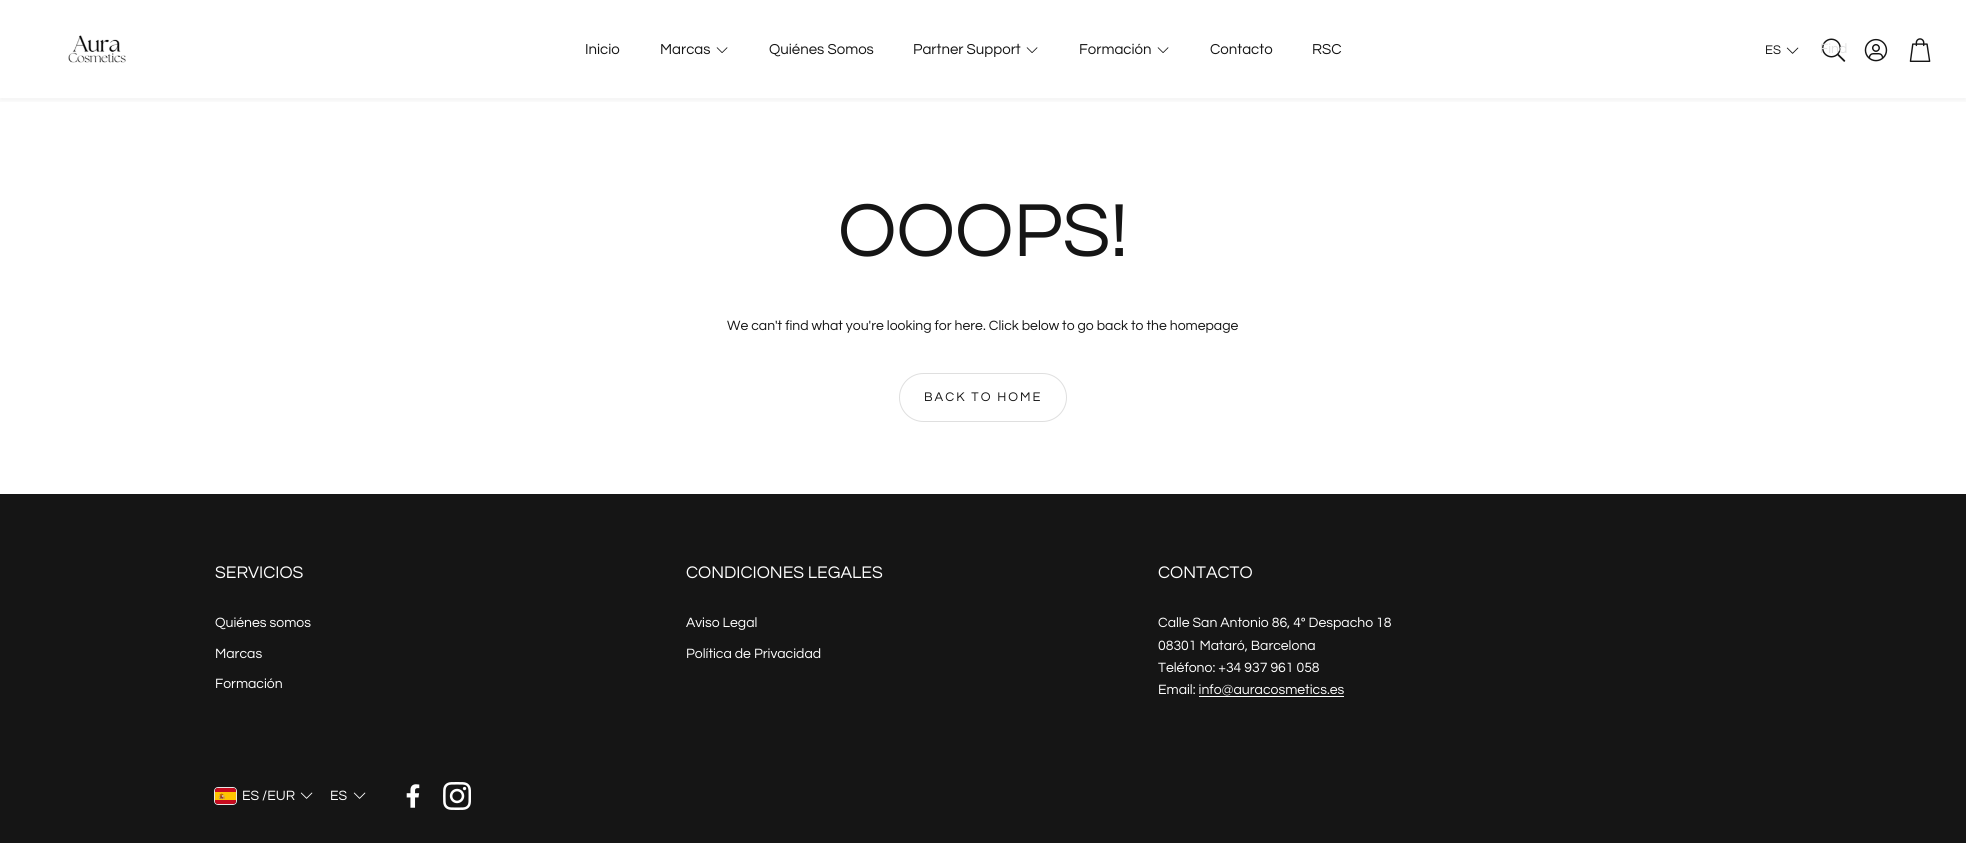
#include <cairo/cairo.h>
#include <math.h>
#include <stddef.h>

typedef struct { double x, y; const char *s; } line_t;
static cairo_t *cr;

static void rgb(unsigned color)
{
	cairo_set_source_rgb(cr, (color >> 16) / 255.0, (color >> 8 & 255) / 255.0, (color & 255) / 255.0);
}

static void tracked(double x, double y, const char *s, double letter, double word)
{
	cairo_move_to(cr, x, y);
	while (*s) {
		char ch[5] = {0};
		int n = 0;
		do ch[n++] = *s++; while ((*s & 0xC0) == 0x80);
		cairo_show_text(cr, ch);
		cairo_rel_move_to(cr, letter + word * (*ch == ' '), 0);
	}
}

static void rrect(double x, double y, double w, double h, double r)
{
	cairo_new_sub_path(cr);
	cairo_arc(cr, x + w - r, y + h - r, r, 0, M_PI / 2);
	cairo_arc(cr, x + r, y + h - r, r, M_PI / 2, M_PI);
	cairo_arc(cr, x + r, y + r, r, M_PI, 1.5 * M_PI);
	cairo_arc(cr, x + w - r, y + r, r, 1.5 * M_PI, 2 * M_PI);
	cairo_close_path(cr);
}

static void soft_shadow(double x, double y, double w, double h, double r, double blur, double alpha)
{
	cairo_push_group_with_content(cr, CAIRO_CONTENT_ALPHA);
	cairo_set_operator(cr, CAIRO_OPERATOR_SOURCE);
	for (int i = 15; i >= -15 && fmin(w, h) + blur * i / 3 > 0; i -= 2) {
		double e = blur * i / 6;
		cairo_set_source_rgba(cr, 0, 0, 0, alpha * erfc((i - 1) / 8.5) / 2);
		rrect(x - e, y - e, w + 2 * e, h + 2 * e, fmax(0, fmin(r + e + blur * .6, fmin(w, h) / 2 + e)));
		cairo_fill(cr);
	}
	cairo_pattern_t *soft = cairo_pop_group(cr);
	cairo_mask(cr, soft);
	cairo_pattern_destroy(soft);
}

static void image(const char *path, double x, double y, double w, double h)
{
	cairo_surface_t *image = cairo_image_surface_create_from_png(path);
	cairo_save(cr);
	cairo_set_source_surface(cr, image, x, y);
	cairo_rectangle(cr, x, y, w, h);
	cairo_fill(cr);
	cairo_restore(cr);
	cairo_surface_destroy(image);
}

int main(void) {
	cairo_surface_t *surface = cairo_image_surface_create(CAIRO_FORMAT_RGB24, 1966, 843);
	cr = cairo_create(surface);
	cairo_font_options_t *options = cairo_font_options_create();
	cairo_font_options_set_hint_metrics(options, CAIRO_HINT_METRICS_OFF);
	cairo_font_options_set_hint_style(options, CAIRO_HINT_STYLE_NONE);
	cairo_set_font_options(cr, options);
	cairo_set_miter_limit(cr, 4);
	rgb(0xffffff);
	cairo_paint(cr);
	cairo_save(cr);
	cairo_rectangle(cr, 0, 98, 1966, 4);
	cairo_clip(cr);
	rgb(0x000000);
	soft_shadow(0, 3, 1966, 98, 0, 3, 0.05);
	cairo_restore(cr);
	image("img/1.png", 68, 35, 58, 28);
	image("img/2.png", 716, 47, 12, 6);
	image("img/2.png", 1026, 47, 12, 6);
	image("img/2.png", 1157, 47, 12, 6);
	image("img/3.png", 1786, 47, 13, 7);
	image("img/4.png", 1822, 38, 24, 24);
	image("img/5.png", 1864, 38, 24, 24);
	image("img/6.png", 1909, 38, 22, 24);
	rrect(899.5, 373.5, 167, 48, 24);
	rgb(0xdfdfdf);
	cairo_set_line_width(cr, 1);
	cairo_stroke(cr);
	rgb(0x151515);
	cairo_rectangle(cr, 0, 494, 1966, 349);
	cairo_fill(cr);
	rgb(0xffffff);
	cairo_rectangle(cr, 1199, 696, 145, 1);
	cairo_fill(cr);
	rrect(214.5, 787.5, 22, 17, 3.5);
	rgb(0xe7e7e7);
	cairo_stroke(cr);
	image("img/7.png", 215, 788, 21, 16);
	image("img/8.png", 300, 792, 13, 7);
	image("img/8.png", 353, 792, 13, 7);
	image("img/9.png", 406, 784, 14, 24);
	image("img/10.png", 443, 782, 28, 28);
	cairo_select_font_face(cr, "Questrial", CAIRO_FONT_SLANT_NORMAL, CAIRO_FONT_WEIGHT_NORMAL);
	cairo_set_font_size(cr, 15);
	rgb(0x151515);
	{
		static const line_t items[] = {
			{585, 54, "Inicio"},
			{660, 54, "Marcas"},
			{769, 54, "Quiénes Somos"},
			{913, 54, "Partner Support"},
			{1079, 54, "Formación"},
			{1210, 54, "Contacto"},
			{1312, 54, "RSC"},
		};
		for (size_t i = 0; i < sizeof items / sizeof *items; i++) {
			cairo_move_to(cr, items[i].x, items[i].y);
			cairo_show_text(cr, items[i].s);
		}
	}
	cairo_set_font_size(cr, 13);
	cairo_move_to(cr, 1765, 54);
	cairo_show_text(cr, "ES");
	cairo_set_font_size(cr, 14);
	rgb(0xe2e2e2);
	cairo_move_to(cr, 1820, 53);
	cairo_show_text(cr, "Find");
	cairo_set_font_size(cr, 78);
	rgb(0x151515);
	cairo_move_to(cr, 838, 256);
	cairo_show_text(cr, "OOOPS!");
	cairo_set_font_size(cr, 14);
	cairo_move_to(cr, 727, 330);
	cairo_show_text(cr, "We can't find what you're looking for here. Click below to go back to the homepage");
	cairo_set_font_size(cr, 13);
	tracked(924, 401, "BACK TO HOME", 2, 0);
	cairo_set_font_size(cr, 17.5);
	rgb(0xffffff);
	cairo_move_to(cr, 215, 578);
	cairo_show_text(cr, "SERVICIOS");
	cairo_set_font_size(cr, 14);
	{
		static const line_t items[] = {
			{215, 627, "Quiénes somos"},
			{215, 658, "Marcas"},
			{215, 688, "Formación"},
		};
		for (size_t i = 0; i < sizeof items / sizeof *items; i++) {
			cairo_move_to(cr, items[i].x, items[i].y);
			cairo_show_text(cr, items[i].s);
		}
	}
	cairo_set_font_size(cr, 17.5);
	cairo_move_to(cr, 686, 578);
	cairo_show_text(cr, "CONDICIONES LEGALES");
	cairo_set_font_size(cr, 14);
	cairo_move_to(cr, 686, 627);
	cairo_show_text(cr, "Aviso Legal");
	cairo_move_to(cr, 686, 658);
	cairo_show_text(cr, "Política de Privacidad");
	cairo_set_font_size(cr, 17.5);
	cairo_move_to(cr, 1158, 578);
	cairo_show_text(cr, "CONTACTO");
	cairo_set_font_size(cr, 14);
	{
		static const line_t items[] = {
			{1158, 627, "Calle San Antonio 86, 4º Despacho 18"},
			{1158, 650, "08301 Mataró, Barcelona"},
			{1158, 672, "Teléfono: +34 937 961 058"},
			{1158, 694, "Email: info@auracosmetics.es"},
			{242, 800, "ES /EUR"},
			{330, 800, "ES"},
		};
		for (size_t i = 0; i < sizeof items / sizeof *items; i++) {
			cairo_move_to(cr, items[i].x, items[i].y);
			cairo_show_text(cr, items[i].s);
		}
	}
	cairo_surface_write_to_png(surface, "page.png");
	cairo_font_options_destroy(options);
	cairo_destroy(cr);
	cairo_surface_destroy(surface);
	return 0;
}
